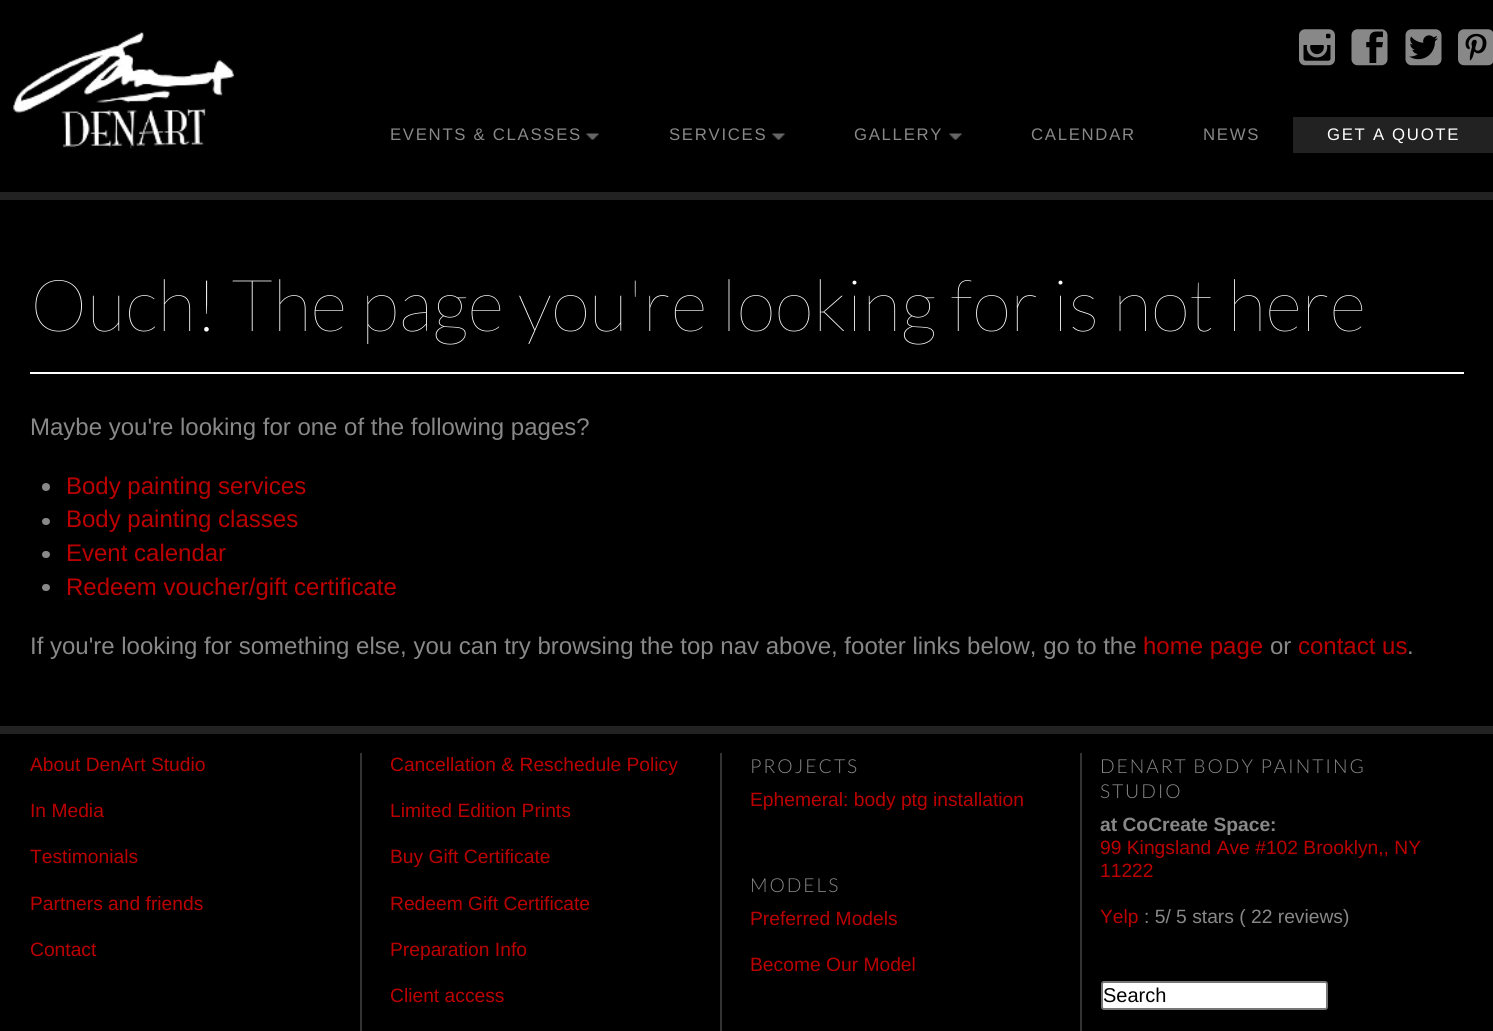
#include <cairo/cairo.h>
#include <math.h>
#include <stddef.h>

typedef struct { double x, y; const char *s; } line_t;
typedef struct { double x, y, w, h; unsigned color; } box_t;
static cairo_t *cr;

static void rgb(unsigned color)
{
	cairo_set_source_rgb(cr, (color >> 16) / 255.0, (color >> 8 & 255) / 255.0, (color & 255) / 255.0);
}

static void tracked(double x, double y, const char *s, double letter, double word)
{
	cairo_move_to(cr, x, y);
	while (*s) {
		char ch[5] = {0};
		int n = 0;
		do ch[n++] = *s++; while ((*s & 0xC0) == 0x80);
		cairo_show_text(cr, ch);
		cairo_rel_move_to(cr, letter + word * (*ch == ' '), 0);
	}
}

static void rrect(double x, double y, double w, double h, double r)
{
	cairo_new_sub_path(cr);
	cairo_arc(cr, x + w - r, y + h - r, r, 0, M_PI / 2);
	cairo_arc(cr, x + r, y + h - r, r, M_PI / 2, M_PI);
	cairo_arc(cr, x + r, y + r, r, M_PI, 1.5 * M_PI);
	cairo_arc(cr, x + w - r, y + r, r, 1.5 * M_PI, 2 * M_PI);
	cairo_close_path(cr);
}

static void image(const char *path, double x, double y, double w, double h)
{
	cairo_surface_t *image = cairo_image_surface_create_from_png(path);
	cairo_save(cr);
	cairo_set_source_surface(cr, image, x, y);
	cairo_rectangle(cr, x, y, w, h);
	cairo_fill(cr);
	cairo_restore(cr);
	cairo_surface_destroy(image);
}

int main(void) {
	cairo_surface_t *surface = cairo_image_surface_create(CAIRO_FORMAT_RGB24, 1493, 1031);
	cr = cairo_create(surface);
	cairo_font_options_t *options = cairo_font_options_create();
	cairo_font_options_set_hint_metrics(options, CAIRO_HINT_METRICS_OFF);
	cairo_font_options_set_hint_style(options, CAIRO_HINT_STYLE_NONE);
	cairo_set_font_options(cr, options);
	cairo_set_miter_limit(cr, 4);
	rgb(0x000000);
	cairo_paint(cr);
	rgb(0x222222);
	cairo_rectangle(cr, 0, 192, 1493, 8);
	cairo_fill(cr);
	image("img/1.png", 12, 32, 222, 117);
	image("img/2.png", 1299, 29, 36, 37);
	image("img/3.png", 1351, 29, 37, 37);
	image("img/4.png", 1405, 29, 37, 37);
	image("img/5.png", 1458, 29, 35, 37);
	image("img/6.png", 586, 133, 13, 7);
	image("img/7.png", 772, 133, 13, 7);
	image("img/7.png", 949, 133, 13, 7);
	cairo_rectangle(cr, 1293, 117, 200, 36);
	cairo_fill(cr);
	rgb(0xffffff);
	cairo_rectangle(cr, 30, 372, 1434, 2);
	cairo_fill(cr);
	rgb(0x888888);
	cairo_arc(cr, 46, 487, 4, 0, 2 * M_PI);
	cairo_fill(cr);
	rrect(42, 518, 8, 7, 3.5);
	cairo_fill(cr);
	rrect(42, 551, 8, 7, 3.5);
	cairo_fill(cr);
	rrect(42, 584, 8, 7, 3.5);
	cairo_fill(cr);
	{
		static const box_t items[] = {
			{0, 726, 1493, 8, 0x222222},
			{360, 753, 2, 278, 0x333333},
			{720, 753, 2, 278, 0x333333},
			{1080, 753, 2, 278, 0x333333},
		};
		for (size_t i = 0; i < sizeof items / sizeof *items; i++) {
			rgb(items[i].color);
			cairo_rectangle(cr, items[i].x, items[i].y, items[i].w, items[i].h);
			cairo_fill(cr);
		}
	}
	rgb(0xffffff);
	rrect(1102, 982, 225, 27, 2);
	cairo_fill_preserve(cr);
	rgb(0x767676);
	cairo_stroke(cr);
	cairo_select_font_face(cr, "Liberation Sans", CAIRO_FONT_SLANT_NORMAL, CAIRO_FONT_WEIGHT_NORMAL);
	cairo_set_font_size(cr, 16.75);
	rgb(0x888888);
	{
		static const line_t items[] = {
			{390, 140, "EVENTS & CLASSES"},
			{669, 140, "SERVICES"},
			{854, 140, "GALLERY"},
			{1031, 140, "CALENDAR"},
			{1203, 140, "NEWS"},
		};
		for (size_t i = 0; i < sizeof items / sizeof *items; i++) {
			tracked(items[i].x, items[i].y, items[i].s, 1.7, 0);
		}
	}
	rgb(0xffffff);
	tracked(1327, 140, "GET A QUOTE", 1.7, 0);
	cairo_select_font_face(cr, "Lato Thin", CAIRO_FONT_SLANT_NORMAL, CAIRO_FONT_WEIGHT_NORMAL);
	cairo_set_font_size(cr, 72);
	cairo_move_to(cr, 30, 331);
	cairo_show_text(cr, "Ouch! The page you're looking for is not here");
	cairo_select_font_face(cr, "Liberation Sans", CAIRO_FONT_SLANT_NORMAL, CAIRO_FONT_WEIGHT_NORMAL);
	cairo_set_font_size(cr, 24);
	rgb(0x888888);
	cairo_move_to(cr, 30, 435);
	cairo_show_text(cr, "Maybe you're looking for one of the following pages?");
	rgb(0xbb0000);
	{
		static const line_t items[] = {
			{66, 494, "Body painting services"},
			{66, 527, "Body painting classes"},
			{66, 561, "Event calendar"},
			{66, 595, "Redeem voucher/gift certificate"},
		};
		for (size_t i = 0; i < sizeof items / sizeof *items; i++) {
			cairo_move_to(cr, items[i].x, items[i].y);
			cairo_show_text(cr, items[i].s);
		}
	}
	rgb(0x888888);
	cairo_move_to(cr, 30, 654);
	cairo_show_text(cr, "If you're looking for something else, you can try browsing the top nav above, footer links below, go to the");
	rgb(0xbb0000);
	cairo_move_to(cr, 1143, 654);
	cairo_show_text(cr, "home page");
	rgb(0x888888);
	cairo_move_to(cr, 1270, 654);
	cairo_show_text(cr, "or");
	rgb(0xbb0000);
	cairo_move_to(cr, 1298, 654);
	cairo_show_text(cr, "contact us");
	rgb(0x888888);
	cairo_move_to(cr, 1407, 654);
	cairo_show_text(cr, ".");
	cairo_set_font_size(cr, 19.25);
	rgb(0xbb0000);
	{
		static const line_t items[] = {
			{30, 771, "About DenArt Studio"},
			{30, 817, "In Media"},
			{30, 863, "Testimonials"},
			{30, 910, "Partners and friends"},
			{30, 956, "Contact"},
			{390, 771, "Cancellation & Reschedule Policy"},
			{390, 817, "Limited Edition Prints"},
			{390, 863, "Buy Gift Certificate"},
			{390, 910, "Redeem Gift Certificate"},
			{390, 956, "Preparation Info"},
			{390, 1002, "Client access"},
		};
		for (size_t i = 0; i < sizeof items / sizeof *items; i++) {
			cairo_move_to(cr, items[i].x, items[i].y);
			cairo_show_text(cr, items[i].s);
		}
	}
	cairo_select_font_face(cr, "Lato Light", CAIRO_FONT_SLANT_NORMAL, CAIRO_FONT_WEIGHT_NORMAL);
	rgb(0x888888);
	tracked(750, 773, "PROJECTS", 1.9, 0);
	cairo_select_font_face(cr, "Liberation Sans", CAIRO_FONT_SLANT_NORMAL, CAIRO_FONT_WEIGHT_NORMAL);
	rgb(0xbb0000);
	cairo_move_to(cr, 750, 806);
	cairo_show_text(cr, "Ephemeral: body ptg installation");
	cairo_select_font_face(cr, "Lato Light", CAIRO_FONT_SLANT_NORMAL, CAIRO_FONT_WEIGHT_NORMAL);
	rgb(0x888888);
	tracked(750, 892, "MODELS", 1.9, 0);
	cairo_select_font_face(cr, "Liberation Sans", CAIRO_FONT_SLANT_NORMAL, CAIRO_FONT_WEIGHT_NORMAL);
	rgb(0xbb0000);
	cairo_move_to(cr, 750, 925);
	cairo_show_text(cr, "Preferred Models");
	cairo_move_to(cr, 750, 971);
	cairo_show_text(cr, "Become Our Model");
	cairo_select_font_face(cr, "Lato Light", CAIRO_FONT_SLANT_NORMAL, CAIRO_FONT_WEIGHT_NORMAL);
	rgb(0x888888);
	tracked(1100, 773, "DENART BODY PAINTING", 1.9, 0);
	tracked(1100, 798, "STUDIO", 1.9, 0);
	cairo_select_font_face(cr, "Liberation Sans", CAIRO_FONT_SLANT_NORMAL, CAIRO_FONT_WEIGHT_BOLD);
	cairo_move_to(cr, 1100, 831);
	cairo_show_text(cr, "at CoCreate Space:");
	cairo_select_font_face(cr, "Liberation Sans", CAIRO_FONT_SLANT_NORMAL, CAIRO_FONT_WEIGHT_NORMAL);
	rgb(0xbb0000);
	{
		static const line_t items[] = {
			{1100, 854, "99 Kingsland Ave #102 Brooklyn,, NY"},
			{1100, 877, "11222"},
			{1100, 923, "Yelp"},
		};
		for (size_t i = 0; i < sizeof items / sizeof *items; i++) {
			cairo_move_to(cr, items[i].x, items[i].y);
			cairo_show_text(cr, items[i].s);
		}
	}
	rgb(0x888888);
	cairo_move_to(cr, 1144, 923);
	cairo_show_text(cr, ": 5/ 5 stars ( 22 reviews)");
	cairo_set_font_size(cr, 20);
	rgb(0x000000);
	cairo_move_to(cr, 1103, 1002);
	cairo_show_text(cr, "Search");
	cairo_surface_write_to_png(surface, "page.png");
	cairo_font_options_destroy(options);
	cairo_destroy(cr);
	cairo_surface_destroy(surface);
	return 0;
}
